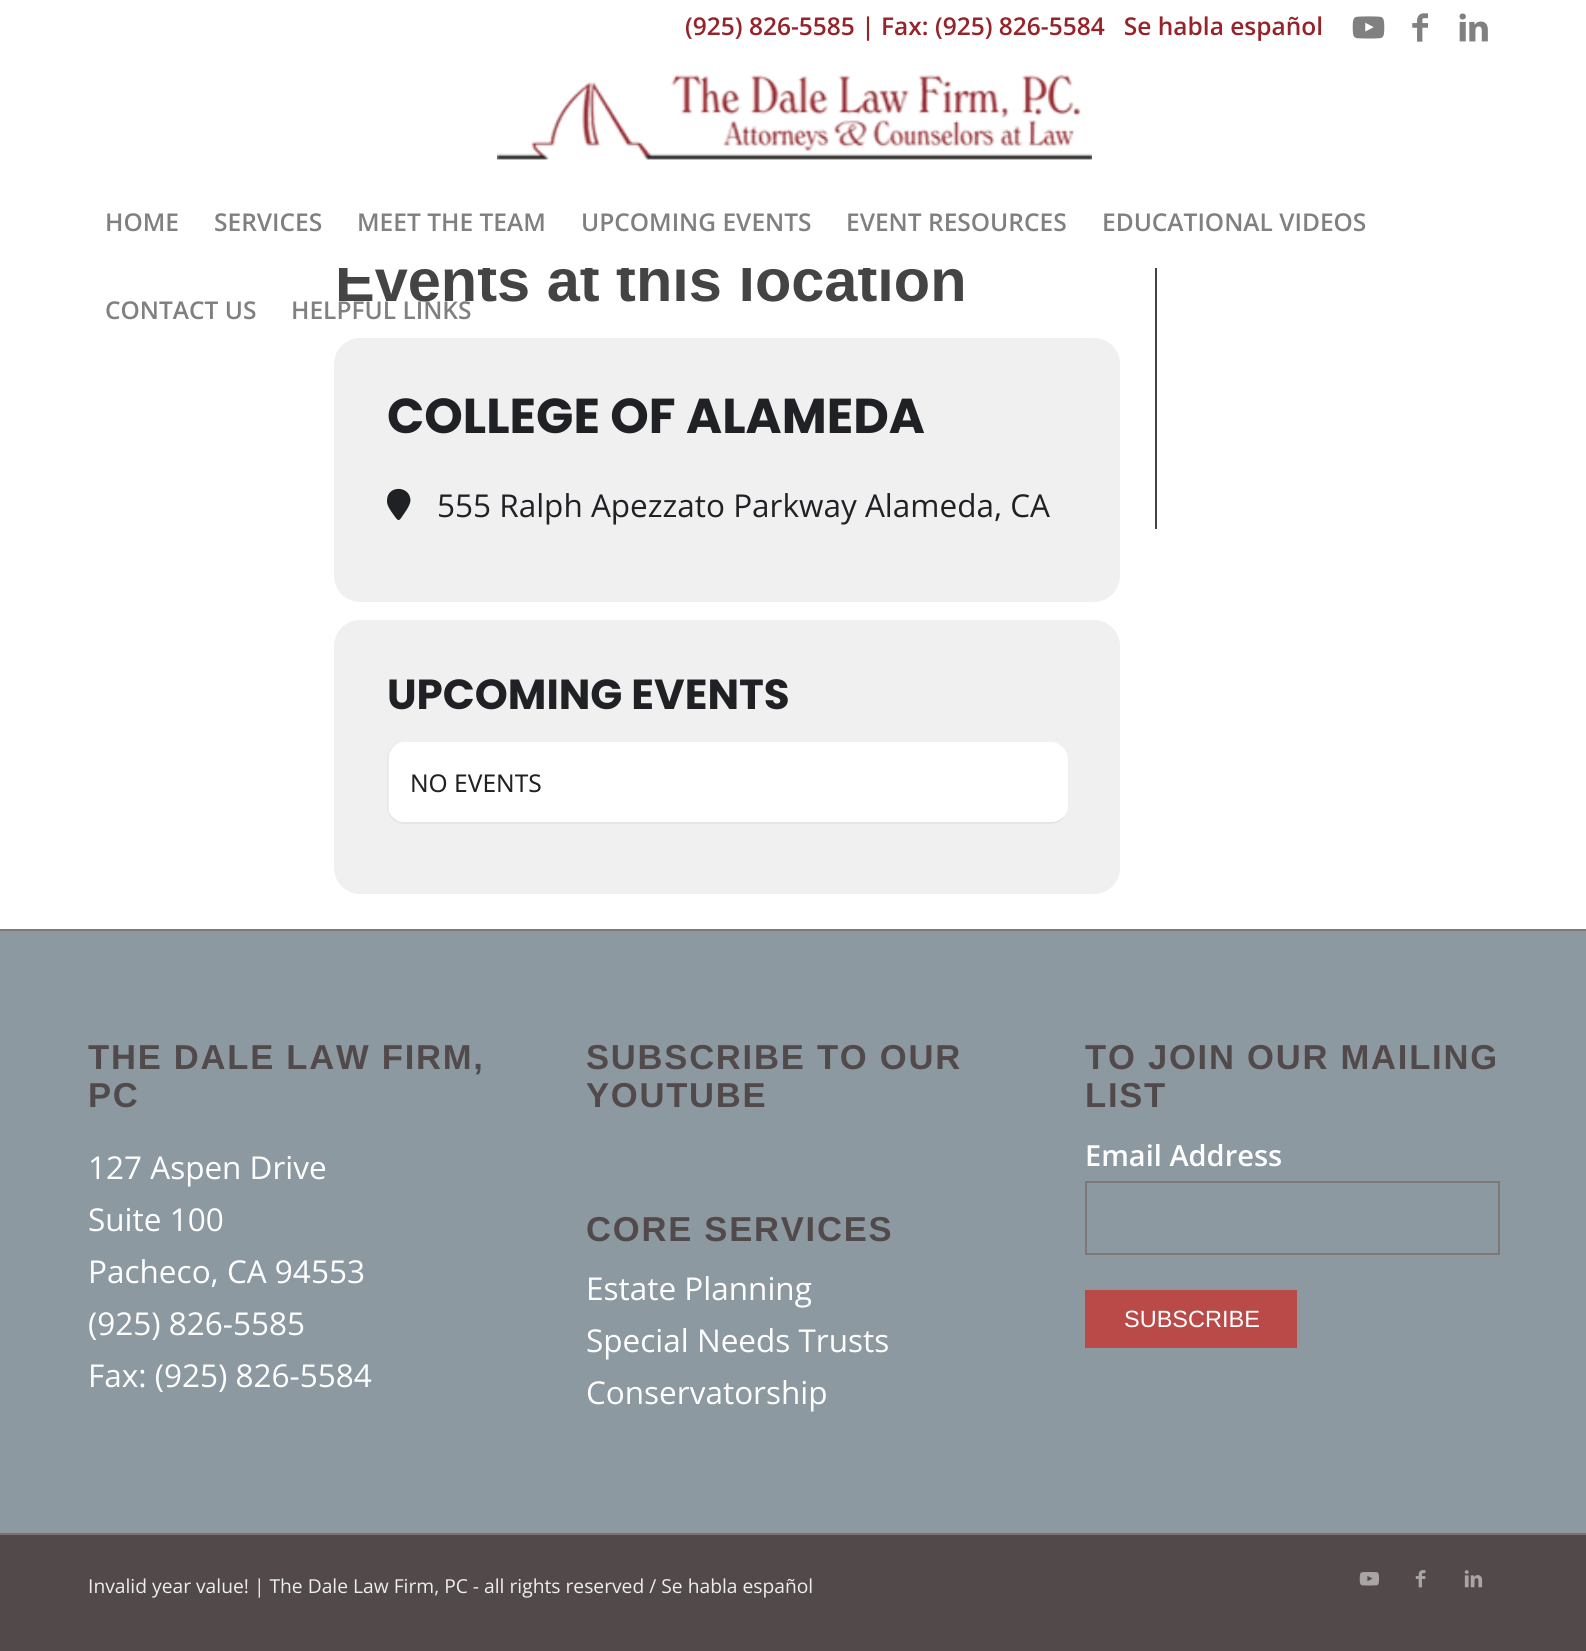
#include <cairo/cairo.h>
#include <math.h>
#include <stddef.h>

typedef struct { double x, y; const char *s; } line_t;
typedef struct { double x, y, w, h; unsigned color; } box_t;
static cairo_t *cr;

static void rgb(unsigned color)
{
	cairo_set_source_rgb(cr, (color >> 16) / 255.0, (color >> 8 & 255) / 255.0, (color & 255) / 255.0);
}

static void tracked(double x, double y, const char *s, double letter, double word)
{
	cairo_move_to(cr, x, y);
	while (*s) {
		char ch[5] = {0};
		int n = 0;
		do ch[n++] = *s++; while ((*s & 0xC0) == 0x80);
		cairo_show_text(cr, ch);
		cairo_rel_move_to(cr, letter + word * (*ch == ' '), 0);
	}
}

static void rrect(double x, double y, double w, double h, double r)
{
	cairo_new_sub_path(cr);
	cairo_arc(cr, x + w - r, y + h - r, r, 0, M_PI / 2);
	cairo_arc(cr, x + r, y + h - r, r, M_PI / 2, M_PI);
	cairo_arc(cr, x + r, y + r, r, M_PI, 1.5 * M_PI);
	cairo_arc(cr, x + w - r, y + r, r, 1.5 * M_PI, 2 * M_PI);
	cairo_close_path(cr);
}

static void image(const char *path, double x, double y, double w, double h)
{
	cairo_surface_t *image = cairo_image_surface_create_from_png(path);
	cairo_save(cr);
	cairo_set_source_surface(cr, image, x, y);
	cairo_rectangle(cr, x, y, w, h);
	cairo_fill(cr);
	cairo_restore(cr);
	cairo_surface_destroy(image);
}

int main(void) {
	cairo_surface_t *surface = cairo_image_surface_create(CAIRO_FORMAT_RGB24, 1586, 1651);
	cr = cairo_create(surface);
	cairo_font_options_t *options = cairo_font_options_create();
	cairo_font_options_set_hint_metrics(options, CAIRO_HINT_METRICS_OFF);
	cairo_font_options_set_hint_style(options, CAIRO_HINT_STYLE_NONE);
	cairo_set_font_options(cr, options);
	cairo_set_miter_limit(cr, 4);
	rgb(0x524a4a);
	cairo_paint(cr);
	rgb(0xffffff);
	cairo_rectangle(cr, 0, 268, 1586, 661);
	cairo_fill(cr);
	rgb(0xf0f0f0);
	rrect(334, 338, 786, 264, 26);
	cairo_fill(cr);
	rgb(0x202124);
	cairo_new_path(cr);
	cairo_move_to(cr, 410.5, 500.5);
	cairo_curve_to(cr, 410, 505, 407, 509.5, 404.5, 513);
	cairo_curve_to(cr, 398.5, 522, 399, 522.5, 393, 514);
	cairo_curve_to(cr, 390.5, 510.5, 386.5, 505, 387, 500.5);
	cairo_curve_to(cr, 387, 485, 410, 485, 410.5, 500.5);
	cairo_close_path(cr);
	cairo_fill(cr);
	rgb(0xf0f0f0);
	rrect(334, 620, 786, 274, 26);
	cairo_fill(cr);
	rgb(0xe5e5e5);
	cairo_set_fill_rule(cr, CAIRO_FILL_RULE_EVEN_ODD);
	cairo_new_path(cr);
	cairo_move_to(cr, 404, 742);
	cairo_line_to(cr, 1050, 742);
	cairo_curve_to(cr, 1060, 742, 1068, 750, 1068, 760);
	cairo_line_to(cr, 1068, 807);
	cairo_curve_to(cr, 1068, 816, 1060, 824, 1050, 824);
	cairo_line_to(cr, 404, 824);
	cairo_curve_to(cr, 395, 824, 387, 816, 387, 807);
	cairo_line_to(cr, 387, 760);
	cairo_curve_to(cr, 387, 750, 395, 742, 404, 742);
	cairo_close_path(cr);
	cairo_move_to(cr, 404, 742);
	cairo_line_to(cr, 1050, 742);
	cairo_curve_to(cr, 1060, 742, 1068, 750, 1068, 760);
	cairo_line_to(cr, 1068, 807);
	cairo_curve_to(cr, 1068, 815, 1060, 822, 1050, 822);
	cairo_line_to(cr, 404, 822);
	cairo_curve_to(cr, 396, 822, 388, 815, 388, 807);
	cairo_line_to(cr, 388, 760);
	cairo_curve_to(cr, 388, 750, 396, 742, 404, 742);
	cairo_close_path(cr);
	cairo_fill(cr);
	rgb(0xffffff);
	cairo_set_fill_rule(cr, CAIRO_FILL_RULE_WINDING);
	cairo_new_path(cr);
	cairo_move_to(cr, 404, 742);
	cairo_curve_to(cr, 397, 742, 391, 748, 389, 755);
	cairo_line_to(cr, 389, 811);
	cairo_curve_to(cr, 391, 817, 397, 822, 404, 822);
	cairo_line_to(cr, 1050, 822);
	cairo_curve_to(cr, 1060, 822, 1068, 815, 1068, 807);
	cairo_line_to(cr, 1068, 760);
	cairo_curve_to(cr, 1068, 750, 1060, 742, 1050, 742);
	cairo_close_path(cr);
	cairo_fill(cr);
	{
		static const box_t items[] = {
			{1155, 268, 2, 261, 0x444444},
			{0, 931, 1586, 602, 0x8c99a1},
			{0, 929, 1586, 2, 0x807877},
		};
		for (size_t i = 0; i < sizeof items / sizeof *items; i++) {
			rgb(items[i].color);
			cairo_rectangle(cr, items[i].x, items[i].y, items[i].w, items[i].h);
			cairo_fill(cr);
		}
	}
	cairo_rectangle(cr, 1086, 1182, 413, 72);
	cairo_stroke(cr);
	rgb(0xb94a48);
	cairo_rectangle(cr, 1085, 1290, 212, 58);
	cairo_fill(cr);
	rgb(0x806e6e);
	cairo_rectangle(cr, 0, 1533, 1586, 2);
	cairo_fill(cr);
	image("img/5.png", 1359, 1572, 20, 14);
	image("img/6.png", 1415, 1570, 11, 18);
	image("img/7.png", 1464, 1570, 19, 18);
	cairo_select_font_face(cr, "Open Sans SemiBold", CAIRO_FONT_SLANT_NORMAL, CAIRO_FONT_WEIGHT_NORMAL);
	cairo_set_font_size(cr, 24.5);
	rgb(0x808080);
	cairo_move_to(cr, 105, 319);
	cairo_show_text(cr, "CONTACT US");
	cairo_move_to(cr, 291, 319);
	cairo_show_text(cr, "HELPFUL LINKS");
	cairo_select_font_face(cr, "Liberation Sans", CAIRO_FONT_SLANT_NORMAL, CAIRO_FONT_WEIGHT_BOLD);
	cairo_set_font_size(cr, 59.5);
	rgb(0x444444);
	cairo_move_to(cr, 335, 301);
	cairo_show_text(cr, "Events at this location");
	rgb(0xffffff);
	cairo_rectangle(cr, 0, 0, 1586, 268);
	cairo_fill(cr);
	image("img/3.png", 1459, 13, 29, 29);
	image("img/2.png", 1412, 13, 16, 29);
	image("img/1.png", 1352, 16, 33, 23);
	cairo_select_font_face(cr, "Open Sans SemiBold", CAIRO_FONT_SLANT_NORMAL, CAIRO_FONT_WEIGHT_NORMAL);
	cairo_set_font_size(cr, 24.5);
	rgb(0x952329);
	cairo_move_to(cr, 685, 35);
	cairo_show_text(cr, "(925) 826-5585 | Fax: (925) 826-5584   Se habla español");
	rgb(0x808080);
	{
		static const line_t items[] = {
			{1102, 231, "EDUCATIONAL VIDEOS"},
			{846, 231, "EVENT RESOURCES"},
			{581, 231, "UPCOMING EVENTS"},
			{357, 231, "MEET THE TEAM"},
			{214, 231, "SERVICES"},
			{105, 231, "HOME"},
		};
		for (size_t i = 0; i < sizeof items / sizeof *items; i++) {
			cairo_move_to(cr, items[i].x, items[i].y);
			cairo_show_text(cr, items[i].s);
		}
	}
	image("img/4.png", 497, 74, 595, 86);
	cairo_select_font_face(cr, "Poppins", CAIRO_FONT_SLANT_NORMAL, CAIRO_FONT_WEIGHT_BOLD);
	cairo_set_font_size(cr, 49);
	rgb(0x202124);
	cairo_move_to(cr, 387, 433);
	cairo_show_text(cr, "COLLEGE OF ALAMEDA");
	cairo_select_font_face(cr, "Open Sans", CAIRO_FONT_SLANT_NORMAL, CAIRO_FONT_WEIGHT_NORMAL);
	cairo_set_font_size(cr, 31.5);
	cairo_move_to(cr, 437, 517);
	cairo_show_text(cr, "555 Ralph Apezzato Parkway Alameda, CA");
	cairo_select_font_face(cr, "Poppins", CAIRO_FONT_SLANT_NORMAL, CAIRO_FONT_WEIGHT_BOLD);
	cairo_set_font_size(cr, 42);
	cairo_move_to(cr, 387, 709);
	cairo_show_text(cr, "UPCOMING EVENTS");
	cairo_select_font_face(cr, "Noto Sans", CAIRO_FONT_SLANT_NORMAL, CAIRO_FONT_WEIGHT_NORMAL);
	cairo_set_font_size(cr, 24.5);
	cairo_move_to(cr, 410, 792);
	cairo_show_text(cr, "NO EVENTS");
	cairo_save(cr);
	cairo_rectangle(cr, 88, 1010, 414, 420);
	cairo_clip(cr);
	cairo_select_font_face(cr, "Liberation Sans", CAIRO_FONT_SLANT_NORMAL, CAIRO_FONT_WEIGHT_BOLD);
	cairo_set_font_size(cr, 34.6);
	rgb(0x524a4a);
	tracked(88, 1069, "THE DALE LAW FIRM,", 1.75, 0);
	cairo_restore(cr);
	cairo_select_font_face(cr, "Liberation Sans", CAIRO_FONT_SLANT_NORMAL, CAIRO_FONT_WEIGHT_BOLD);
	cairo_set_font_size(cr, 34.6);
	rgb(0x524a4a);
	tracked(88, 1107, "PC", 1.75, 0);
	cairo_select_font_face(cr, "Open Sans", CAIRO_FONT_SLANT_NORMAL, CAIRO_FONT_WEIGHT_NORMAL);
	cairo_set_font_size(cr, 31.5);
	rgb(0xffffff);
	{
		static const line_t items[] = {
			{88, 1179, "127 Aspen Drive"},
			{88, 1231, "Suite 100"},
			{88, 1283, "Pacheco, CA 94553"},
			{88, 1335, "(925) 826-5585"},
			{88, 1387, "Fax: (925) 826-5584"},
		};
		for (size_t i = 0; i < sizeof items / sizeof *items; i++) {
			cairo_move_to(cr, items[i].x, items[i].y);
			cairo_show_text(cr, items[i].s);
		}
	}
	cairo_select_font_face(cr, "Liberation Sans", CAIRO_FONT_SLANT_NORMAL, CAIRO_FONT_WEIGHT_BOLD);
	cairo_set_font_size(cr, 34.6);
	rgb(0x524a4a);
	{
		static const line_t items[] = {
			{586, 1069, "SUBSCRIBE TO OUR"},
			{586, 1107, "YOUTUBE"},
			{586, 1241, "CORE SERVICES"},
		};
		for (size_t i = 0; i < sizeof items / sizeof *items; i++) {
			tracked(items[i].x, items[i].y, items[i].s, 1.75, 0);
		}
	}
	cairo_select_font_face(cr, "Open Sans", CAIRO_FONT_SLANT_NORMAL, CAIRO_FONT_WEIGHT_NORMAL);
	cairo_set_font_size(cr, 31.5);
	rgb(0xffffff);
	{
		static const line_t items[] = {
			{586, 1300, "Estate Planning"},
			{586, 1352, "Special Needs Trusts"},
			{586, 1404, "Conservatorship"},
		};
		for (size_t i = 0; i < sizeof items / sizeof *items; i++) {
			cairo_move_to(cr, items[i].x, items[i].y);
			cairo_show_text(cr, items[i].s);
		}
	}
	cairo_select_font_face(cr, "Liberation Sans", CAIRO_FONT_SLANT_NORMAL, CAIRO_FONT_WEIGHT_BOLD);
	cairo_set_font_size(cr, 34.6);
	rgb(0x524a4a);
	tracked(1085, 1069, "TO JOIN OUR MAILING", 1.75, 0);
	tracked(1085, 1107, "LIST", 1.75, 0);
	cairo_select_font_face(cr, "Open Sans SemiBold", CAIRO_FONT_SLANT_NORMAL, CAIRO_FONT_WEIGHT_NORMAL);
	cairo_set_font_size(cr, 29);
	rgb(0xffffff);
	cairo_move_to(cr, 1085, 1166);
	cairo_show_text(cr, "Email Address");
	cairo_select_font_face(cr, "Liberation Sans", CAIRO_FONT_SLANT_NORMAL, CAIRO_FONT_WEIGHT_NORMAL);
	cairo_set_font_size(cr, 23.5);
	cairo_move_to(cr, 1124, 1327);
	cairo_show_text(cr, "SUBSCRIBE");
	cairo_select_font_face(cr, "Open Sans", CAIRO_FONT_SLANT_NORMAL, CAIRO_FONT_WEIGHT_NORMAL);
	cairo_set_font_size(cr, 19.25);
	rgb(0xeeeeee);
	cairo_move_to(cr, 88, 1593);
	cairo_show_text(cr, "Invalid year value! | The Dale Law Firm, PC - all rights reserved / Se habla español");
	cairo_surface_write_to_png(surface, "page.png");
	cairo_font_options_destroy(options);
	cairo_destroy(cr);
	cairo_surface_destroy(surface);
	return 0;
}
